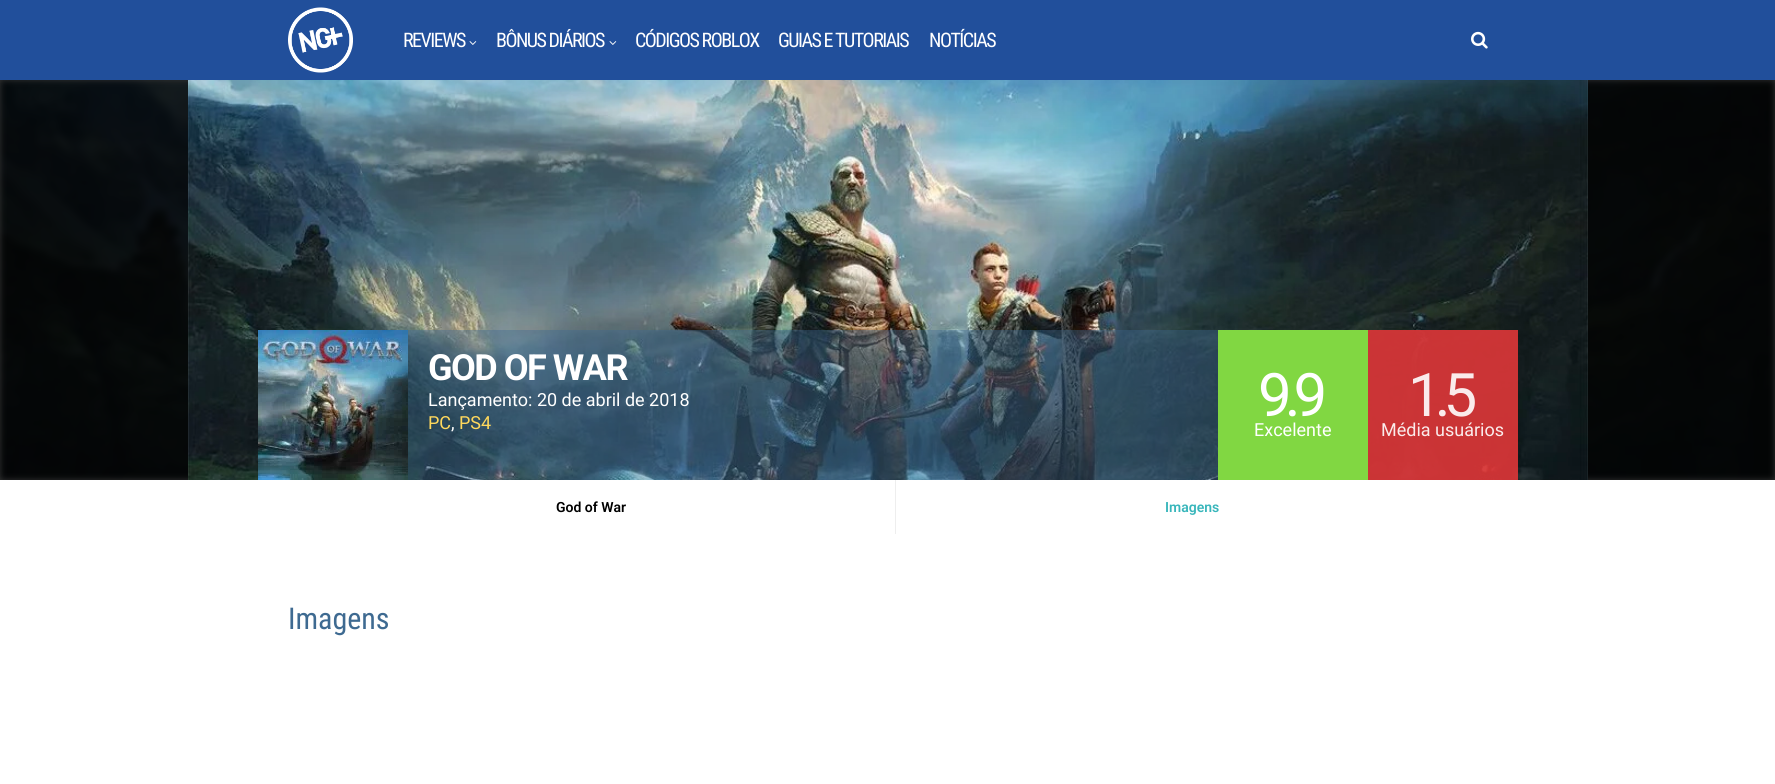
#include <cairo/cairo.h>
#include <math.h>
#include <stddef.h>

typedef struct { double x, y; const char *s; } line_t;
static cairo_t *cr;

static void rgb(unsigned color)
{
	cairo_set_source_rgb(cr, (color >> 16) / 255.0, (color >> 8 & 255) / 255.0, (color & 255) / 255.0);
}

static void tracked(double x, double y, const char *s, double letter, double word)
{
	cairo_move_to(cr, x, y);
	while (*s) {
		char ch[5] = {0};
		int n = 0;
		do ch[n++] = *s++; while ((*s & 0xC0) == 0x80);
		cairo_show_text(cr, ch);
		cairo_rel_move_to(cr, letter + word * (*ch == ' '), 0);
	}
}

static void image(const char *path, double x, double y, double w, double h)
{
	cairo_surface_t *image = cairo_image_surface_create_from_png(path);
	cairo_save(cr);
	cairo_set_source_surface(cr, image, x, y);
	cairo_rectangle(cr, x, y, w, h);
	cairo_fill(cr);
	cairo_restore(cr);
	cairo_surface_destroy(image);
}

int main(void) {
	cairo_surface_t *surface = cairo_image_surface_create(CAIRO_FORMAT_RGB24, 1775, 784);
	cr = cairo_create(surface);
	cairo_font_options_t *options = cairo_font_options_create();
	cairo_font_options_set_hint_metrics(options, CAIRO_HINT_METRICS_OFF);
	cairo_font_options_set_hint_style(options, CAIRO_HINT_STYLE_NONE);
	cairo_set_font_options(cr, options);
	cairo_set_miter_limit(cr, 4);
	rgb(0xffffff);
	cairo_paint(cr);
	rgb(0x333333);
	cairo_rectangle(cr, 0, 80, 1775, 400);
	cairo_fill(cr);
	rgb(0x214f9b);
	cairo_rectangle(cr, 0, 0, 1775, 80);
	cairo_fill(cr);
	image("img/1.png", 288, 7, 65, 66);
	image("img/2.png", 469, 41, 8, 4);
	image("img/2.png", 609, 41, 8, 4);
	image("img/3.png", 1471, 31, 17, 18);
	image("img/4.png", 0, 80, 1775, 400);
	image("img/5.png", 188, 80, 1400, 400);
	cairo_set_source_rgba(cr, 0.243, 0.416, 0.569, 0.4);
	cairo_rectangle(cr, 408, 330, 1110, 150);
	cairo_fill(cr);
	image("img/6.png", 258, 330, 150, 150);
	rgb(0x81d742);
	cairo_rectangle(cr, 1218, 330, 150, 150);
	cairo_fill(cr);
	cairo_set_source_rgba(cr, 0.867, 0.2, 0.2, 0.9);
	cairo_rectangle(cr, 1368, 330, 150, 150);
	cairo_fill(cr);
	rgb(0xeeeeee);
	cairo_rectangle(cr, 895, 480, 1, 54);
	cairo_fill(cr);
	cairo_select_font_face(cr, "Roboto Condensed", CAIRO_FONT_SLANT_NORMAL, CAIRO_FONT_WEIGHT_NORMAL);
	cairo_set_font_size(cr, 20);
	rgb(0xffffff);
	{
		static const line_t items[] = {
			{403, 47, "REVIEWS"},
			{496, 47, "BÔNUS DIÁRIOS"},
			{635, 47, "CÓDIGOS ROBLOX"},
			{778, 47, "GUIAS E TUTORIAIS"},
			{929, 47, "NOTÍCIAS"},
		};
		for (size_t i = 0; i < sizeof items / sizeof *items; i++) {
			tracked(items[i].x, items[i].y, items[i].s, -1.5, 0);
		}
	}
	cairo_select_font_face(cr, "Roboto", CAIRO_FONT_SLANT_NORMAL, CAIRO_FONT_WEIGHT_BOLD);
	cairo_set_font_size(cr, 36);
	tracked(428, 380, "GOD OF WAR", -1.5, 0);
	cairo_select_font_face(cr, "Roboto", CAIRO_FONT_SLANT_NORMAL, CAIRO_FONT_WEIGHT_NORMAL);
	cairo_set_font_size(cr, 18);
	cairo_move_to(cr, 428, 406);
	cairo_show_text(cr, "Lançamento: 20 de abril de 2018");
	rgb(0xffd85c);
	cairo_move_to(cr, 428, 429);
	cairo_show_text(cr, "PC");
	rgb(0xffffff);
	cairo_move_to(cr, 451, 429);
	cairo_show_text(cr, ",");
	rgb(0xffd85c);
	cairo_move_to(cr, 459, 429);
	cairo_show_text(cr, "PS4");
	cairo_set_font_size(cr, 60);
	rgb(0xffffff);
	tracked(1258, 416, "9.9", -7, 0);
	cairo_set_font_size(cr, 18);
	cairo_move_to(cr, 1254, 436);
	cairo_show_text(cr, "Excelente");
	cairo_set_font_size(cr, 60);
	rgb(0xfaebeb);
	tracked(1408, 416, "1.5", -7, 0);
	cairo_set_font_size(cr, 18);
	cairo_move_to(cr, 1381, 436);
	cairo_show_text(cr, "Média usuários");
	cairo_select_font_face(cr, "Roboto SemiBold", CAIRO_FONT_SLANT_NORMAL, CAIRO_FONT_WEIGHT_NORMAL);
	cairo_set_font_size(cr, 14);
	rgb(0x000000);
	cairo_move_to(cr, 556, 512);
	cairo_show_text(cr, "God of War");
	rgb(0x38b6bb);
	cairo_move_to(cr, 1165, 512);
	cairo_show_text(cr, "Imagens");
	cairo_select_font_face(cr, "Roboto Condensed", CAIRO_FONT_SLANT_NORMAL, CAIRO_FONT_WEIGHT_NORMAL);
	cairo_set_font_size(cr, 30);
	rgb(0x3e6a91);
	cairo_move_to(cr, 288, 629);
	cairo_show_text(cr, "Imagens");
	cairo_surface_write_to_png(surface, "page.png");
	cairo_font_options_destroy(options);
	cairo_destroy(cr);
	cairo_surface_destroy(surface);
	return 0;
}
